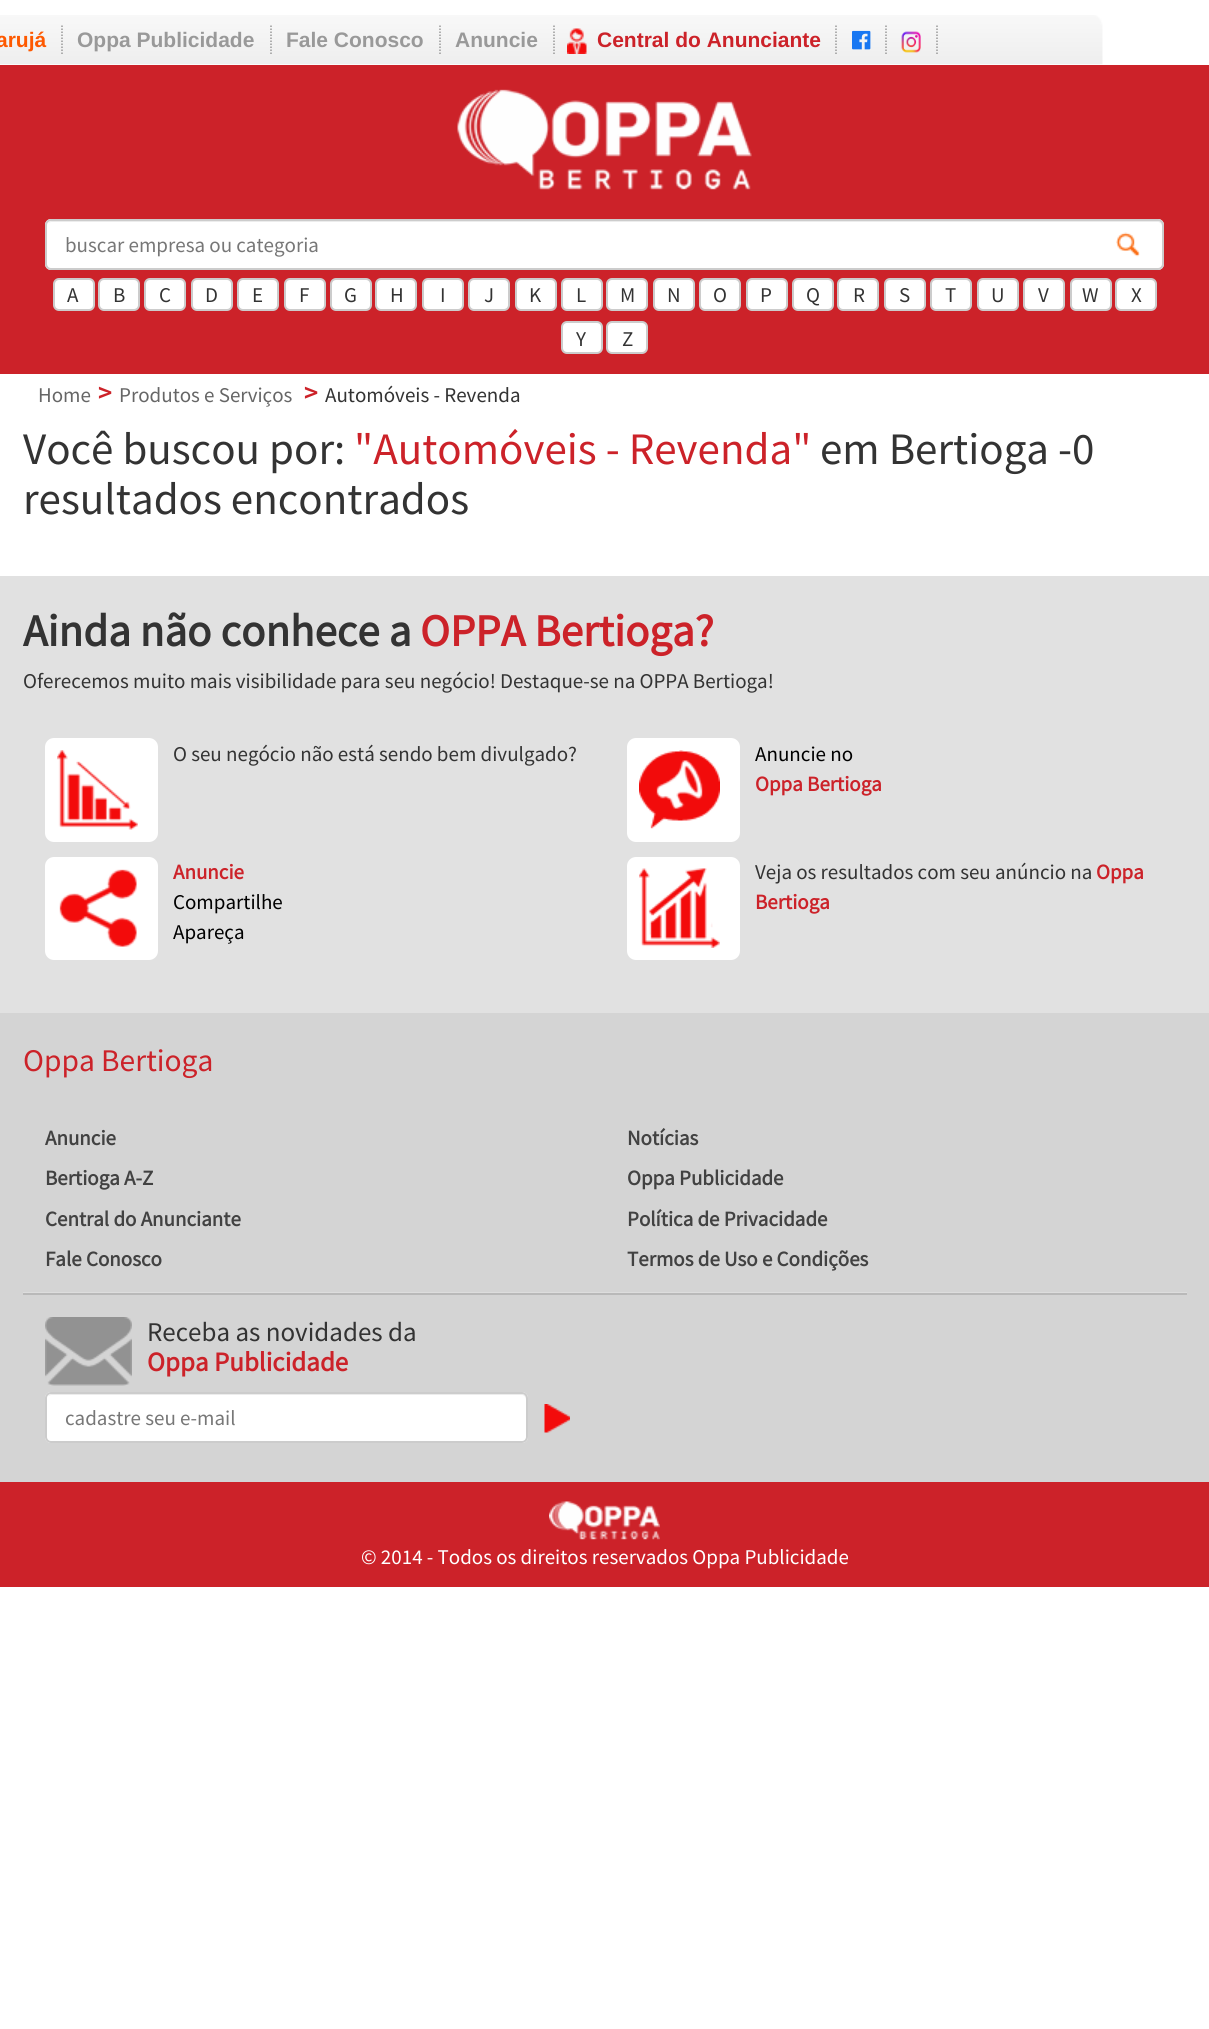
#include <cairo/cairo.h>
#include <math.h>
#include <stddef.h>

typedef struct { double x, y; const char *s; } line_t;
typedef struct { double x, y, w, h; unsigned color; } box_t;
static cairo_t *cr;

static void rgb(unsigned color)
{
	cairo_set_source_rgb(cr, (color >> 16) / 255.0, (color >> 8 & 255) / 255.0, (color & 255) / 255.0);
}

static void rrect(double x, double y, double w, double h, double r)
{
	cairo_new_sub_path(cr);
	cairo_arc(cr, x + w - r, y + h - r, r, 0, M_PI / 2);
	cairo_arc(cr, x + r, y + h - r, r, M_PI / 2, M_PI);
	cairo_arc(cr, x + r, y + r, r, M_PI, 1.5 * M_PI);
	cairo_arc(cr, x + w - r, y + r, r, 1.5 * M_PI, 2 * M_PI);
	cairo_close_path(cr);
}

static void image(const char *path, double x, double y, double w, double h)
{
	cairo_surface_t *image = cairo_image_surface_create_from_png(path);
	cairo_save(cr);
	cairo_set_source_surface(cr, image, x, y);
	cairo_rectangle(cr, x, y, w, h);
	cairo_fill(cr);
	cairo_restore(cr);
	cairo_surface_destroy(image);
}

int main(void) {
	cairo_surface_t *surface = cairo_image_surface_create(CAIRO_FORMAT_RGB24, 1209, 2029);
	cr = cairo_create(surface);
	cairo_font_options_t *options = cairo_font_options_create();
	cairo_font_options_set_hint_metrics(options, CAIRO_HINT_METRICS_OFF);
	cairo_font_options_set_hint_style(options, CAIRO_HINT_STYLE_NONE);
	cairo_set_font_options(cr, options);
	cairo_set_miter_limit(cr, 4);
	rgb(0xffffff);
	cairo_paint(cr);
	image("img/1.png", 0, 15, 1103, 50);
	cairo_new_path(cr);
	cairo_move_to(cr, 62, 25.5);
	cairo_line_to(cr, 62, 55.5);
	rgb(0x999999);
	cairo_set_line_width(cr, 1.5);
	cairo_set_dash(cr, (double[]){1.5, 1.5}, 2, 0);
	cairo_stroke(cr);
	cairo_new_path(cr);
	cairo_move_to(cr, 271, 25.5);
	cairo_line_to(cr, 271, 55.5);
	cairo_stroke(cr);
	cairo_new_path(cr);
	cairo_move_to(cr, 440, 25.5);
	cairo_line_to(cr, 440, 55.5);
	cairo_stroke(cr);
	cairo_new_path(cr);
	cairo_move_to(cr, 554, 25.5);
	cairo_line_to(cr, 554, 55.5);
	cairo_stroke(cr);
	image("img/2.png", 567, 28, 20, 26);
	cairo_new_path(cr);
	cairo_move_to(cr, 836, 25.5);
	cairo_line_to(cr, 836, 55.5);
	cairo_stroke(cr);
	cairo_new_path(cr);
	cairo_move_to(cr, 886, 25.5);
	cairo_line_to(cr, 886, 55.5);
	cairo_stroke(cr);
	image("img/3.png", 852, 30, 19, 20);
	cairo_new_path(cr);
	cairo_move_to(cr, 937, 25.5);
	cairo_line_to(cr, 937, 55.5);
	cairo_stroke(cr);
	image("img/4.png", 901, 31, 20, 22);
	rgb(0xcc2229);
	cairo_rectangle(cr, 0, 65, 1209, 309);
	cairo_fill(cr);
	image("img/5.png", 457, 89, 295, 101);
	rgb(0xffffff);
	rrect(45, 219, 1119, 51, 6);
	cairo_fill(cr);
	image("img/6.png", 1116, 232, 24, 25);
	rgb(0xececec);
	cairo_new_path(cr);
	cairo_move_to(cr, 51, 222);
	cairo_line_to(cr, 1158, 222);
	cairo_curve_to(cr, 1160, 222, 1162, 224, 1162, 226);
	cairo_line_to(cr, 1162, 267);
	cairo_curve_to(cr, 1163, 266, 1163, 265, 1163, 264);
	cairo_line_to(cr, 1163, 226);
	cairo_curve_to(cr, 1163, 223, 1161, 221, 1158, 221);
	cairo_line_to(cr, 52, 221);
	cairo_curve_to(cr, 50, 221, 49, 222, 48, 223);
	cairo_close_path(cr);
	cairo_fill(cr);
	rrect(46, 220, 1117, 49, 5);
	rgb(0xcccccc);
	cairo_set_line_width(cr, 2);
	cairo_set_dash(cr, NULL, 0, 0);
	cairo_stroke(cr);
	rgb(0xffffff);
	rrect(54, 279, 40, 31, 5);
	cairo_fill_preserve(cr);
	rgb(0xcccccc);
	cairo_stroke(cr);
	rgb(0xffffff);
	rrect(99, 279, 40, 31, 5);
	cairo_fill_preserve(cr);
	rgb(0xcccccc);
	cairo_stroke(cr);
	rgb(0xffffff);
	rrect(145, 279, 40, 31, 5);
	cairo_fill_preserve(cr);
	rgb(0xcccccc);
	cairo_stroke(cr);
	rgb(0xffffff);
	rrect(192, 279, 40, 31, 5);
	cairo_fill_preserve(cr);
	rgb(0xcccccc);
	cairo_stroke(cr);
	rgb(0xffffff);
	rrect(238, 279, 40, 31, 5);
	cairo_fill_preserve(cr);
	rgb(0xcccccc);
	cairo_stroke(cr);
	rgb(0xffffff);
	rrect(285, 279, 40, 31, 5);
	cairo_fill_preserve(cr);
	rgb(0xcccccc);
	cairo_stroke(cr);
	rgb(0xffffff);
	rrect(331, 279, 40, 31, 5);
	cairo_fill_preserve(cr);
	rgb(0xcccccc);
	cairo_stroke(cr);
	rgb(0xffffff);
	rrect(376, 279, 40, 31, 5);
	cairo_fill_preserve(cr);
	rgb(0xcccccc);
	cairo_stroke(cr);
	rgb(0xffffff);
	rrect(423, 279, 40, 31, 5);
	cairo_fill_preserve(cr);
	rgb(0xcccccc);
	cairo_stroke(cr);
	rgb(0xffffff);
	rrect(469, 279, 40, 31, 5);
	cairo_fill_preserve(cr);
	rgb(0xcccccc);
	cairo_stroke(cr);
	rgb(0xffffff);
	rrect(516, 279, 40, 31, 5);
	cairo_fill_preserve(cr);
	rgb(0xcccccc);
	cairo_stroke(cr);
	rgb(0xffffff);
	rrect(562, 279, 40, 31, 5);
	cairo_fill_preserve(cr);
	rgb(0xcccccc);
	cairo_stroke(cr);
	rgb(0xffffff);
	rrect(607, 279, 40, 31, 5);
	cairo_fill_preserve(cr);
	rgb(0xcccccc);
	cairo_stroke(cr);
	rgb(0xffffff);
	rrect(654, 279, 40, 31, 5);
	cairo_fill_preserve(cr);
	rgb(0xcccccc);
	cairo_stroke(cr);
	rgb(0xffffff);
	rrect(700, 279, 40, 31, 5);
	cairo_fill_preserve(cr);
	rgb(0xcccccc);
	cairo_stroke(cr);
	rgb(0xffffff);
	rrect(747, 279, 40, 31, 5);
	cairo_fill_preserve(cr);
	rgb(0xcccccc);
	cairo_stroke(cr);
	rgb(0xffffff);
	rrect(793, 279, 40, 31, 5);
	cairo_fill_preserve(cr);
	rgb(0xcccccc);
	cairo_stroke(cr);
	rgb(0xffffff);
	rrect(838, 279, 40, 31, 5);
	cairo_fill_preserve(cr);
	rgb(0xcccccc);
	cairo_stroke(cr);
	rgb(0xffffff);
	rrect(885, 279, 40, 31, 5);
	cairo_fill_preserve(cr);
	rgb(0xcccccc);
	cairo_stroke(cr);
	rgb(0xffffff);
	rrect(931, 279, 40, 31, 5);
	cairo_fill_preserve(cr);
	rgb(0xcccccc);
	cairo_stroke(cr);
	rgb(0xffffff);
	rrect(978, 279, 40, 31, 5);
	cairo_fill_preserve(cr);
	rgb(0xcccccc);
	cairo_stroke(cr);
	rgb(0xffffff);
	rrect(1024, 279, 40, 31, 5);
	cairo_fill_preserve(cr);
	rgb(0xcccccc);
	cairo_stroke(cr);
	rgb(0xffffff);
	rrect(1071, 279, 40, 31, 5);
	cairo_fill_preserve(cr);
	rgb(0xcccccc);
	cairo_stroke(cr);
	rgb(0xffffff);
	rrect(1116, 279, 40, 31, 5);
	cairo_fill_preserve(cr);
	rgb(0xcccccc);
	cairo_stroke(cr);
	rgb(0xffffff);
	rrect(562, 322, 40, 31, 5);
	cairo_fill_preserve(cr);
	rgb(0xcccccc);
	cairo_stroke(cr);
	rgb(0xffffff);
	rrect(607, 322, 40, 31, 5);
	cairo_fill_preserve(cr);
	rgb(0xcccccc);
	cairo_stroke(cr);
	rgb(0xe1e1e1);
	cairo_rectangle(cr, 0, 576, 1209, 437);
	cairo_fill(cr);
	rgb(0xffffff);
	rrect(45, 738, 113, 104, 9);
	cairo_fill(cr);
	image("img/7.png", 57, 750, 81, 80);
	rrect(627, 738, 113, 104, 9);
	cairo_fill(cr);
	image("img/8.png", 639, 750, 81, 79);
	rrect(45, 857, 113, 103, 9);
	cairo_fill(cr);
	image("img/9.png", 59, 869, 78, 78);
	rrect(627, 857, 113, 103, 9);
	cairo_fill(cr);
	image("img/10.png", 639, 868, 81, 80);
	{
		static const box_t items[] = {
			{0, 1013, 1209, 469, 0xd4d4d4},
			{23, 1292, 1164, 1, 0xdddddd},
			{23, 1293, 1164, 2, 0xb9b9b9},
		};
		for (size_t i = 0; i < sizeof items / sizeof *items; i++) {
			rgb(items[i].color);
			cairo_rectangle(cr, items[i].x, items[i].y, items[i].w, items[i].h);
			cairo_fill(cr);
		}
	}
	image("img/11.png", 45, 1317, 87, 69);
	rgb(0xffffff);
	rrect(45, 1392, 483, 51, 6);
	cairo_fill(cr);
	rgb(0xececec);
	cairo_new_path(cr);
	cairo_move_to(cr, 51, 1395);
	cairo_line_to(cr, 522, 1395);
	cairo_curve_to(cr, 524, 1395, 526, 1397, 526, 1400);
	cairo_line_to(cr, 526, 1438);
	cairo_line_to(cr, 525, 1441);
	cairo_curve_to(cr, 526, 1440, 527, 1438, 527, 1437);
	cairo_line_to(cr, 527, 1399);
	cairo_curve_to(cr, 527, 1396, 525, 1394, 522, 1394);
	cairo_line_to(cr, 52, 1394);
	cairo_curve_to(cr, 50, 1394, 49, 1395, 48, 1396);
	cairo_close_path(cr);
	cairo_fill(cr);
	rrect(46, 1393, 481, 49, 5);
	rgb(0xcccccc);
	cairo_stroke(cr);
	image("img/12.png", 544, 1404, 26, 29);
	rgb(0xcc2229);
	cairo_rectangle(cr, 0, 1482, 1209, 105);
	cairo_fill(cr);
	image("img/13.png", 549, 1501, 111, 39);
	cairo_select_font_face(cr, "Liberation Sans", CAIRO_FONT_SLANT_NORMAL, CAIRO_FONT_WEIGHT_BOLD);
	cairo_set_font_size(cr, 21);
	rgb(0xfe5900);
	cairo_move_to(cr, -4, 47);
	cairo_show_text(cr, "arujá");
	rgb(0x999999);
	{
		static const line_t items[] = {
			{77, 47, "Oppa Publicidade"},
			{286, 47, "Fale Conosco"},
			{455, 47, "Anuncie"},
		};
		for (size_t i = 0; i < sizeof items / sizeof *items; i++) {
			cairo_move_to(cr, items[i].x, items[i].y);
			cairo_show_text(cr, items[i].s);
		}
	}
	rgb(0xcc2229);
	cairo_move_to(cr, 597, 47);
	cairo_show_text(cr, "Central do Anunciante");
	cairo_select_font_face(cr, "Source Sans Pro", CAIRO_FONT_SLANT_NORMAL, CAIRO_FONT_WEIGHT_NORMAL);
	rgb(0x777777);
	cairo_move_to(cr, 65, 252);
	cairo_show_text(cr, "buscar empresa ou categoria");
	rgb(0x333333);
	{
		static const line_t items[] = {
			{67, 302, "A"},
			{113, 302, "B"},
			{159, 302, "C"},
			{205, 302, "D"},
			{252, 302, "E"},
			{299, 302, "F"},
			{344, 302, "G"},
			{390, 302, "H"},
			{440, 302, "I"},
			{484, 302, "J"},
			{529, 302, "K"},
			{576, 302, "L"},
			{620, 302, "M"},
			{667, 302, "N"},
			{713, 302, "O"},
			{760, 302, "P"},
			{806, 302, "Q"},
			{853, 302, "R"},
			{899, 302, "S"},
			{945, 302, "T"},
			{991, 302, "U"},
			{1038, 302, "V"},
			{1082, 302, "W"},
			{1131, 302, "X"},
			{576, 346, "Y"},
			{622, 346, "Z"},
		};
		for (size_t i = 0; i < sizeof items / sizeof *items; i++) {
			cairo_move_to(cr, items[i].x, items[i].y);
			cairo_show_text(cr, items[i].s);
		}
	}
	rgb(0x666666);
	cairo_move_to(cr, 38, 402);
	cairo_show_text(cr, "Home");
	cairo_select_font_face(cr, "Source Sans Pro", CAIRO_FONT_SLANT_NORMAL, CAIRO_FONT_WEIGHT_BOLD);
	cairo_set_font_size(cr, 27);
	rgb(0xcc2229);
	cairo_move_to(cr, 98, 402);
	cairo_show_text(cr, ">");
	cairo_select_font_face(cr, "Source Sans Pro", CAIRO_FONT_SLANT_NORMAL, CAIRO_FONT_WEIGHT_NORMAL);
	cairo_set_font_size(cr, 21);
	rgb(0x666666);
	cairo_move_to(cr, 119, 402);
	cairo_show_text(cr, "Produtos e Serviços");
	cairo_select_font_face(cr, "Source Sans Pro", CAIRO_FONT_SLANT_NORMAL, CAIRO_FONT_WEIGHT_BOLD);
	cairo_set_font_size(cr, 27);
	rgb(0xcc2229);
	cairo_move_to(cr, 304, 402);
	cairo_show_text(cr, ">");
	cairo_select_font_face(cr, "Source Sans Pro", CAIRO_FONT_SLANT_NORMAL, CAIRO_FONT_WEIGHT_NORMAL);
	cairo_set_font_size(cr, 21);
	rgb(0x333333);
	cairo_move_to(cr, 325, 402);
	cairo_show_text(cr, "Automóveis - Revenda");
	cairo_set_font_size(cr, 45);
	cairo_move_to(cr, 23, 464);
	cairo_show_text(cr, "Você buscou por:");
	rgb(0xcc2229);
	cairo_move_to(cr, 354, 464);
	cairo_show_text(cr, "\"Automóveis - Revenda\"");
	rgb(0x333333);
	cairo_move_to(cr, 820, 464);
	cairo_show_text(cr, "em Bertioga -0");
	cairo_move_to(cr, 23, 514);
	cairo_show_text(cr, "resultados encontrados");
	cairo_select_font_face(cr, "Source Sans Pro", CAIRO_FONT_SLANT_NORMAL, CAIRO_FONT_WEIGHT_BOLD);
	cairo_move_to(cr, 23, 646);
	cairo_show_text(cr, "Ainda não conhece a");
	rgb(0xcc2229);
	cairo_move_to(cr, 420, 646);
	cairo_show_text(cr, "OPPA Bertioga?");
	cairo_select_font_face(cr, "Source Sans Pro", CAIRO_FONT_SLANT_NORMAL, CAIRO_FONT_WEIGHT_NORMAL);
	cairo_set_font_size(cr, 21);
	rgb(0x333333);
	cairo_move_to(cr, 23, 688);
	cairo_show_text(cr, "Oferecemos muito mais visibilidade para seu negócio! Destaque-se na OPPA Bertioga!");
	cairo_move_to(cr, 173, 761);
	cairo_show_text(cr, "O seu negócio não está sendo bem divulgado?");
	rgb(0x000000);
	cairo_move_to(cr, 755, 761);
	cairo_show_text(cr, "Anuncie no");
	cairo_select_font_face(cr, "Source Sans Pro", CAIRO_FONT_SLANT_NORMAL, CAIRO_FONT_WEIGHT_BOLD);
	rgb(0xcc2229);
	cairo_move_to(cr, 755, 791);
	cairo_show_text(cr, "Oppa Bertioga");
	cairo_move_to(cr, 173, 879);
	cairo_show_text(cr, "Anuncie");
	cairo_select_font_face(cr, "Source Sans Pro", CAIRO_FONT_SLANT_NORMAL, CAIRO_FONT_WEIGHT_NORMAL);
	rgb(0x000000);
	cairo_move_to(cr, 173, 909);
	cairo_show_text(cr, "Compartilhe");
	cairo_move_to(cr, 173, 939);
	cairo_show_text(cr, "Apareça");
	rgb(0x333333);
	cairo_move_to(cr, 755, 879);
	cairo_show_text(cr, "Veja os resultados com seu anúncio na");
	cairo_select_font_face(cr, "Source Sans Pro", CAIRO_FONT_SLANT_NORMAL, CAIRO_FONT_WEIGHT_BOLD);
	rgb(0xcc2229);
	cairo_move_to(cr, 1096, 879);
	cairo_show_text(cr, "Oppa");
	cairo_move_to(cr, 755, 909);
	cairo_show_text(cr, "Bertioga");
	cairo_select_font_face(cr, "Source Sans Pro", CAIRO_FONT_SLANT_NORMAL, CAIRO_FONT_WEIGHT_NORMAL);
	cairo_set_font_size(cr, 31.5);
	cairo_move_to(cr, 23, 1071);
	cairo_show_text(cr, "Oppa Bertioga");
	cairo_select_font_face(cr, "Source Sans Pro", CAIRO_FONT_SLANT_NORMAL, CAIRO_FONT_WEIGHT_BOLD);
	cairo_set_font_size(cr, 21);
	rgb(0x424242);
	{
		static const line_t items[] = {
			{45, 1145, "Anuncie"},
			{45, 1185, "Bertioga A-Z"},
			{45, 1226, "Central do Anunciante"},
			{45, 1266, "Fale Conosco"},
			{627, 1145, "Notícias"},
			{627, 1185, "Oppa Publicidade"},
			{627, 1226, "Política de Privacidade"},
			{627, 1266, "Termos de Uso e Condições"},
		};
		for (size_t i = 0; i < sizeof items / sizeof *items; i++) {
			cairo_move_to(cr, items[i].x, items[i].y);
			cairo_show_text(cr, items[i].s);
		}
	}
	cairo_select_font_face(cr, "Source Sans Pro", CAIRO_FONT_SLANT_NORMAL, CAIRO_FONT_WEIGHT_NORMAL);
	cairo_set_font_size(cr, 27);
	rgb(0x333333);
	cairo_move_to(cr, 147, 1341);
	cairo_show_text(cr, "Receba as novidades da");
	cairo_select_font_face(cr, "Source Sans Pro", CAIRO_FONT_SLANT_NORMAL, CAIRO_FONT_WEIGHT_BOLD);
	rgb(0xcc2229);
	cairo_move_to(cr, 147, 1371);
	cairo_show_text(cr, "Oppa Publicidade");
	cairo_select_font_face(cr, "Source Sans Pro", CAIRO_FONT_SLANT_NORMAL, CAIRO_FONT_WEIGHT_NORMAL);
	cairo_set_font_size(cr, 21);
	rgb(0x777777);
	cairo_move_to(cr, 65, 1425);
	cairo_show_text(cr, "cadastre seu e-mail");
	rgb(0xffffff);
	cairo_move_to(cr, 361, 1564);
	cairo_show_text(cr, "© 2014 - Todos os direitos reservados Oppa Publicidade");
	cairo_surface_write_to_png(surface, "page.png");
	cairo_font_options_destroy(options);
	cairo_destroy(cr);
	cairo_surface_destroy(surface);
	return 0;
}
